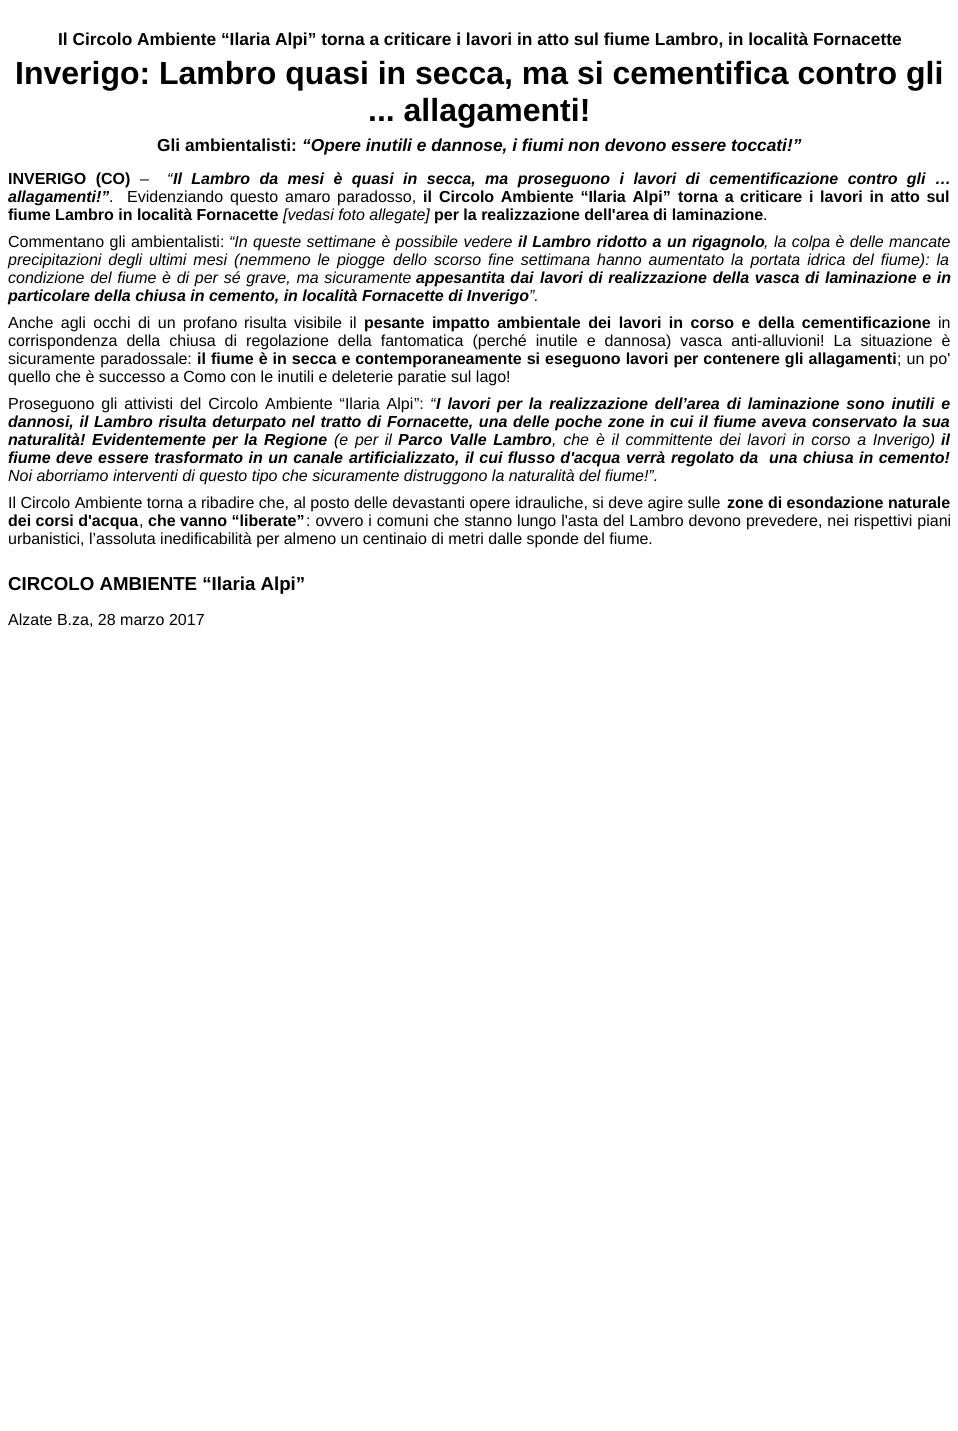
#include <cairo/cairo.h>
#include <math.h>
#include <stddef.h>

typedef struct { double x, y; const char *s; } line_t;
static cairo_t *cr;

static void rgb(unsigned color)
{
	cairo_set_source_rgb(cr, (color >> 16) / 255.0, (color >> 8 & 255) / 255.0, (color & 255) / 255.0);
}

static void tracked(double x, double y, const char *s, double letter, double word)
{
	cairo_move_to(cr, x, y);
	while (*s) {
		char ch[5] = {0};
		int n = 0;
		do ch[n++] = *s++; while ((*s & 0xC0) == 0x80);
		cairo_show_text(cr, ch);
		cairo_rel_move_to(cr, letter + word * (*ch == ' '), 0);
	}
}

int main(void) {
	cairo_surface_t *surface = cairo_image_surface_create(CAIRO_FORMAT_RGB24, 958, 1431);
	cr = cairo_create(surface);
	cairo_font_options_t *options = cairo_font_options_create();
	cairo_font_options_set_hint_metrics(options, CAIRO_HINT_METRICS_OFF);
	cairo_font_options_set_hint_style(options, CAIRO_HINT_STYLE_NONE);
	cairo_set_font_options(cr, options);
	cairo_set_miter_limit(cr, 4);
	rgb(0xffffff);
	cairo_paint(cr);
	cairo_select_font_face(cr, "Liberation Sans", CAIRO_FONT_SLANT_NORMAL, CAIRO_FONT_WEIGHT_BOLD);
	cairo_set_font_size(cr, 17.35);
	rgb(0x000000);
	cairo_move_to(cr, 58, 45);
	cairo_show_text(cr, "Il Circolo Ambiente “Ilaria Alpi” torna a criticare i lavori in atto sul fiume Lambro, in località Fornacette");
	cairo_set_font_size(cr, 32);
	cairo_move_to(cr, 15, 84);
	cairo_show_text(cr, "Inverigo: Lambro quasi in secca, ma si cementifica contro gli");
	cairo_move_to(cr, 368, 121);
	cairo_show_text(cr, "... allagamenti!");
	cairo_set_font_size(cr, 17.35);
	cairo_move_to(cr, 157, 151);
	cairo_show_text(cr, "Gli ambientalisti:");
	cairo_select_font_face(cr, "Liberation Sans", CAIRO_FONT_SLANT_ITALIC, CAIRO_FONT_WEIGHT_BOLD);
	cairo_move_to(cr, 302, 151);
	cairo_show_text(cr, "“Opere inutili e dannose, i fiumi non devono essere toccati!”");
	cairo_select_font_face(cr, "Liberation Sans", CAIRO_FONT_SLANT_NORMAL, CAIRO_FONT_WEIGHT_BOLD);
	cairo_set_font_size(cr, 16);
	tracked(8, 184, "INVERIGO (CO)", 0, 5);
	cairo_select_font_face(cr, "Liberation Sans", CAIRO_FONT_SLANT_ITALIC, CAIRO_FONT_WEIGHT_NORMAL);
	cairo_move_to(cr, 167, 184);
	cairo_show_text(cr, "“");
	cairo_select_font_face(cr, "Liberation Sans", CAIRO_FONT_SLANT_ITALIC, CAIRO_FONT_WEIGHT_BOLD);
	tracked(173, 184, "Il Lambro da mesi è quasi in secca, ma proseguono i lavori di cementificazione contro gli …", 0, 5);
	cairo_select_font_face(cr, "Liberation Sans", CAIRO_FONT_SLANT_NORMAL, CAIRO_FONT_WEIGHT_NORMAL);
	cairo_move_to(cr, 140, 184);
	cairo_show_text(cr, "–");
	cairo_select_font_face(cr, "Liberation Sans", CAIRO_FONT_SLANT_ITALIC, CAIRO_FONT_WEIGHT_BOLD);
	cairo_move_to(cr, 8, 202);
	cairo_show_text(cr, "allagamenti!”");
	rgb(0xffffff);
	cairo_rectangle(cr, 109, 188, 1, 5);
	cairo_fill(cr);
	cairo_select_font_face(cr, "Liberation Sans", CAIRO_FONT_SLANT_NORMAL, CAIRO_FONT_WEIGHT_NORMAL);
	rgb(0x000000);
	{
		static const line_t items[] = {
			{109, 202, "."},
			{127, 202, "Evidenziando"},
			{230, 202, "questo"},
		};
		for (size_t i = 0; i < sizeof items / sizeof *items; i++) {
			cairo_move_to(cr, items[i].x, items[i].y);
			cairo_show_text(cr, items[i].s);
		}
	}
	tracked(285, 202, "amaro paradosso,", 0, 2.25);
	cairo_select_font_face(cr, "Liberation Sans", CAIRO_FONT_SLANT_NORMAL, CAIRO_FONT_WEIGHT_BOLD);
	cairo_move_to(cr, 423, 202);
	cairo_show_text(cr, "il");
	{
		static const line_t items[] = {
			{439, 202, "Circolo Ambiente “Ilaria Alpi”"},
			{678, 202, "torna a"},
			{740, 202, "criticare i lavori in atto sul"},
		};
		for (size_t i = 0; i < sizeof items / sizeof *items; i++) {
			tracked(items[i].x, items[i].y, items[i].s, 0, 2.25);
		}
	}
	cairo_move_to(cr, 8, 220);
	cairo_show_text(cr, "fiume Lambro in località Fornacette");
	cairo_select_font_face(cr, "Liberation Sans", CAIRO_FONT_SLANT_ITALIC, CAIRO_FONT_WEIGHT_NORMAL);
	cairo_move_to(cr, 283, 220);
	cairo_show_text(cr, "[vedasi foto allegate]");
	cairo_select_font_face(cr, "Liberation Sans", CAIRO_FONT_SLANT_NORMAL, CAIRO_FONT_WEIGHT_BOLD);
	cairo_move_to(cr, 434, 220);
	cairo_show_text(cr, "per la realizzazione dell'area di laminazione");
	cairo_select_font_face(cr, "Liberation Sans", CAIRO_FONT_SLANT_NORMAL, CAIRO_FONT_WEIGHT_NORMAL);
	cairo_move_to(cr, 763, 220);
	cairo_show_text(cr, ".");
	tracked(8, 247, "Commentano gli ambientalisti:", 0, 1);
	cairo_select_font_face(cr, "Liberation Sans", CAIRO_FONT_SLANT_ITALIC, CAIRO_FONT_WEIGHT_NORMAL);
	tracked(229, 247, "“In queste settimane è possibile vedere", 0, 1);
	cairo_select_font_face(cr, "Liberation Sans", CAIRO_FONT_SLANT_ITALIC, CAIRO_FONT_WEIGHT_BOLD);
	tracked(518, 247, "il Lambro ridotto a un rigagnolo", 0, 1);
	cairo_select_font_face(cr, "Liberation Sans", CAIRO_FONT_SLANT_ITALIC, CAIRO_FONT_WEIGHT_NORMAL);
	tracked(764, 247, ", la colpa è delle mancate", 0, 1);
	tracked(8, 265, "precipitazioni degli ultimi mesi (nemmeno le piogge", 0, 2.5);
	cairo_move_to(cr, 393, 265);
	cairo_show_text(cr, "dello");
	cairo_move_to(cr, 434, 265);
	cairo_show_text(cr, "scorso");
	tracked(488, 265, "fine settimana hanno aumentato la portata idrica del fiume): la", 0, 2.5);
	tracked(8, 283, "condizione del fiume è di per sé grave, ma sicuramente", 0, 1.25);
	cairo_select_font_face(cr, "Liberation Sans", CAIRO_FONT_SLANT_ITALIC, CAIRO_FONT_WEIGHT_BOLD);
	tracked(416, 283, "appesantita dai", 0, 1);
	tracked(540, 283, "lavori di realizzazione della vasca di laminazione e in", 0, 1.25);
	cairo_move_to(cr, 8, 301);
	cairo_show_text(cr, "particolare della chiusa in cemento, in località Fornacette di Inverigo");
	cairo_select_font_face(cr, "Liberation Sans", CAIRO_FONT_SLANT_ITALIC, CAIRO_FONT_WEIGHT_NORMAL);
	cairo_move_to(cr, 529, 301);
	cairo_show_text(cr, "”.");
	cairo_select_font_face(cr, "Liberation Sans", CAIRO_FONT_SLANT_NORMAL, CAIRO_FONT_WEIGHT_NORMAL);
	tracked(8, 328, "Anche agli occhi di un profano", 0, 3);
	cairo_move_to(cr, 244, 328);
	cairo_show_text(cr, "risulta");
	tracked(294, 328, "visibile il", 0, 3);
	cairo_select_font_face(cr, "Liberation Sans", CAIRO_FONT_SLANT_NORMAL, CAIRO_FONT_WEIGHT_BOLD);
	tracked(364, 328, "pesante impatto ambientale dei lavori in corso e della cementificazione", 0, 3);
	cairo_select_font_face(cr, "Liberation Sans", CAIRO_FONT_SLANT_NORMAL, CAIRO_FONT_WEIGHT_NORMAL);
	cairo_move_to(cr, 938, 328);
	cairo_show_text(cr, "in");
	tracked(8, 346, "corrispondenza della chiusa di regolazione della fantomatica (perché inutile e dannosa) vasca anti-alluvioni! La situazione è", 0, 4.6);
	tracked(8, 364, "sicuramente paradossale:", 0, 0.6);
	cairo_select_font_face(cr, "Liberation Sans", CAIRO_FONT_SLANT_NORMAL, CAIRO_FONT_WEIGHT_BOLD);
	tracked(197, 364, "il fiume è in secca e contemporaneamente si eseguono lavori per contenere gli allagamenti", 0, 0.6);
	cairo_select_font_face(cr, "Liberation Sans", CAIRO_FONT_SLANT_NORMAL, CAIRO_FONT_WEIGHT_NORMAL);
	tracked(897, 364, "; un po'", 0, 0.6);
	cairo_move_to(cr, 8, 382);
	cairo_show_text(cr, "quello che è successo a Como con le inutili e deleterie paratie sul lago!");
	tracked(8, 409, "Proseguono gli attivisti", 0, 2.5);
	tracked(180, 409, "del Circolo Ambiente “Ilaria Alpi", 0, 2.5);
	cairo_move_to(cr, 414, 409);
	cairo_show_text(cr, "”:");
	cairo_select_font_face(cr, "Liberation Sans", CAIRO_FONT_SLANT_ITALIC, CAIRO_FONT_WEIGHT_NORMAL);
	cairo_move_to(cr, 430, 409);
	cairo_show_text(cr, "“");
	rgb(0xffffff);
	cairo_rectangle(cr, 436, 398, 1, 1);
	cairo_fill(cr);
	cairo_select_font_face(cr, "Liberation Sans", CAIRO_FONT_SLANT_ITALIC, CAIRO_FONT_WEIGHT_BOLD);
	rgb(0x000000);
	tracked(436, 409, "I lavori per la realizzazione dell’area di laminazione sono inutili e", 0, 2.5);
	tracked(8, 427, "dannosi, il Lambro risulta deturpato nel tratto di Fornacette, una delle poche zone in cui il fiume aveva conservato la sua", 0, 1.25);
	tracked(8, 445, "naturalità! Evidentemente per", 0, 2.25);
	tracked(244, 445, "la Regione", 0, 2.25);
	cairo_select_font_face(cr, "Liberation Sans", CAIRO_FONT_SLANT_ITALIC, CAIRO_FONT_WEIGHT_NORMAL);
	tracked(334, 445, "(e per il", 0, 2.25);
	cairo_select_font_face(cr, "Liberation Sans", CAIRO_FONT_SLANT_ITALIC, CAIRO_FONT_WEIGHT_BOLD);
	tracked(398, 445, "Parco Valle Lambro", 0, 2.25);
	cairo_select_font_face(cr, "Liberation Sans", CAIRO_FONT_SLANT_ITALIC, CAIRO_FONT_WEIGHT_NORMAL);
	tracked(552, 445, ", che", 0, 2.25);
	tracked(596, 445, "è il committente dei lavori in corso a Inverigo)", 0, 2.25);
	cairo_select_font_face(cr, "Liberation Sans", CAIRO_FONT_SLANT_ITALIC, CAIRO_FONT_WEIGHT_BOLD);
	cairo_move_to(cr, 941, 445);
	cairo_show_text(cr, "il");
	tracked(8, 463, "fiume deve essere trasformato in un canale", 0, 1);
	cairo_move_to(cr, 349, 463);
	cairo_show_text(cr, "artificializzato");
	tracked(455, 463, ", il cui flusso d'acqua", 0, 1);
	cairo_move_to(cr, 626, 463);
	cairo_show_text(cr, "verrà");
	tracked(671, 463, "regolato da", 0, 1);
	tracked(769, 463, "una chiusa in cemento!", 0, 1);
	cairo_select_font_face(cr, "Liberation Sans", CAIRO_FONT_SLANT_ITALIC, CAIRO_FONT_WEIGHT_NORMAL);
	cairo_move_to(cr, 8, 481);
	cairo_show_text(cr, "Noi aborriamo interventi di questo tipo che sicuramente distruggono la naturalità del fiume!”.");
	cairo_select_font_face(cr, "Liberation Sans", CAIRO_FONT_SLANT_NORMAL, CAIRO_FONT_WEIGHT_NORMAL);
	cairo_move_to(cr, 8, 508);
	cairo_show_text(cr, "Il Circolo Ambiente torna a ribadire che, al posto delle devastanti opere idrauliche, si deve agire sulle");
	cairo_select_font_face(cr, "Liberation Sans", CAIRO_FONT_SLANT_NORMAL, CAIRO_FONT_WEIGHT_BOLD);
	cairo_move_to(cr, 727, 508);
	cairo_show_text(cr, "zone di esondazione naturale");
	cairo_move_to(cr, 8, 526);
	cairo_show_text(cr, "dei corsi d'acqua");
	cairo_select_font_face(cr, "Liberation Sans", CAIRO_FONT_SLANT_NORMAL, CAIRO_FONT_WEIGHT_NORMAL);
	cairo_move_to(cr, 139, 526);
	cairo_show_text(cr, ",");
	rgb(0xffffff);
	cairo_rectangle(cr, 139, 524, 1, 2);
	cairo_fill(cr);
	cairo_select_font_face(cr, "Liberation Sans", CAIRO_FONT_SLANT_NORMAL, CAIRO_FONT_WEIGHT_BOLD);
	rgb(0x000000);
	cairo_move_to(cr, 148, 526);
	cairo_show_text(cr, "che vanno “liberate”");
	cairo_select_font_face(cr, "Liberation Sans", CAIRO_FONT_SLANT_NORMAL, CAIRO_FONT_WEIGHT_NORMAL);
	tracked(306, 526, ": ovvero i comuni che stanno lungo l'asta del Lambro devono prevedere, nei rispettivi piani", 0, 0.5);
	cairo_move_to(cr, 8, 544);
	cairo_show_text(cr, "urbanistici, l’assoluta inedificabilità per almeno un centinaio di metri dalle sponde del fiume.");
	cairo_select_font_face(cr, "Liberation Sans", CAIRO_FONT_SLANT_NORMAL, CAIRO_FONT_WEIGHT_BOLD);
	cairo_set_font_size(cr, 18.7);
	cairo_move_to(cr, 8, 590);
	cairo_show_text(cr, "CIRCOLO AMBIENTE “Ilaria Alpi”");
	cairo_select_font_face(cr, "Liberation Sans", CAIRO_FONT_SLANT_NORMAL, CAIRO_FONT_WEIGHT_NORMAL);
	cairo_set_font_size(cr, 16);
	cairo_move_to(cr, 8, 625);
	cairo_show_text(cr, "Alzate B.za, 28 marzo 2017");
	cairo_surface_write_to_png(surface, "page.png");
	cairo_font_options_destroy(options);
	cairo_destroy(cr);
	cairo_surface_destroy(surface);
	return 0;
}
